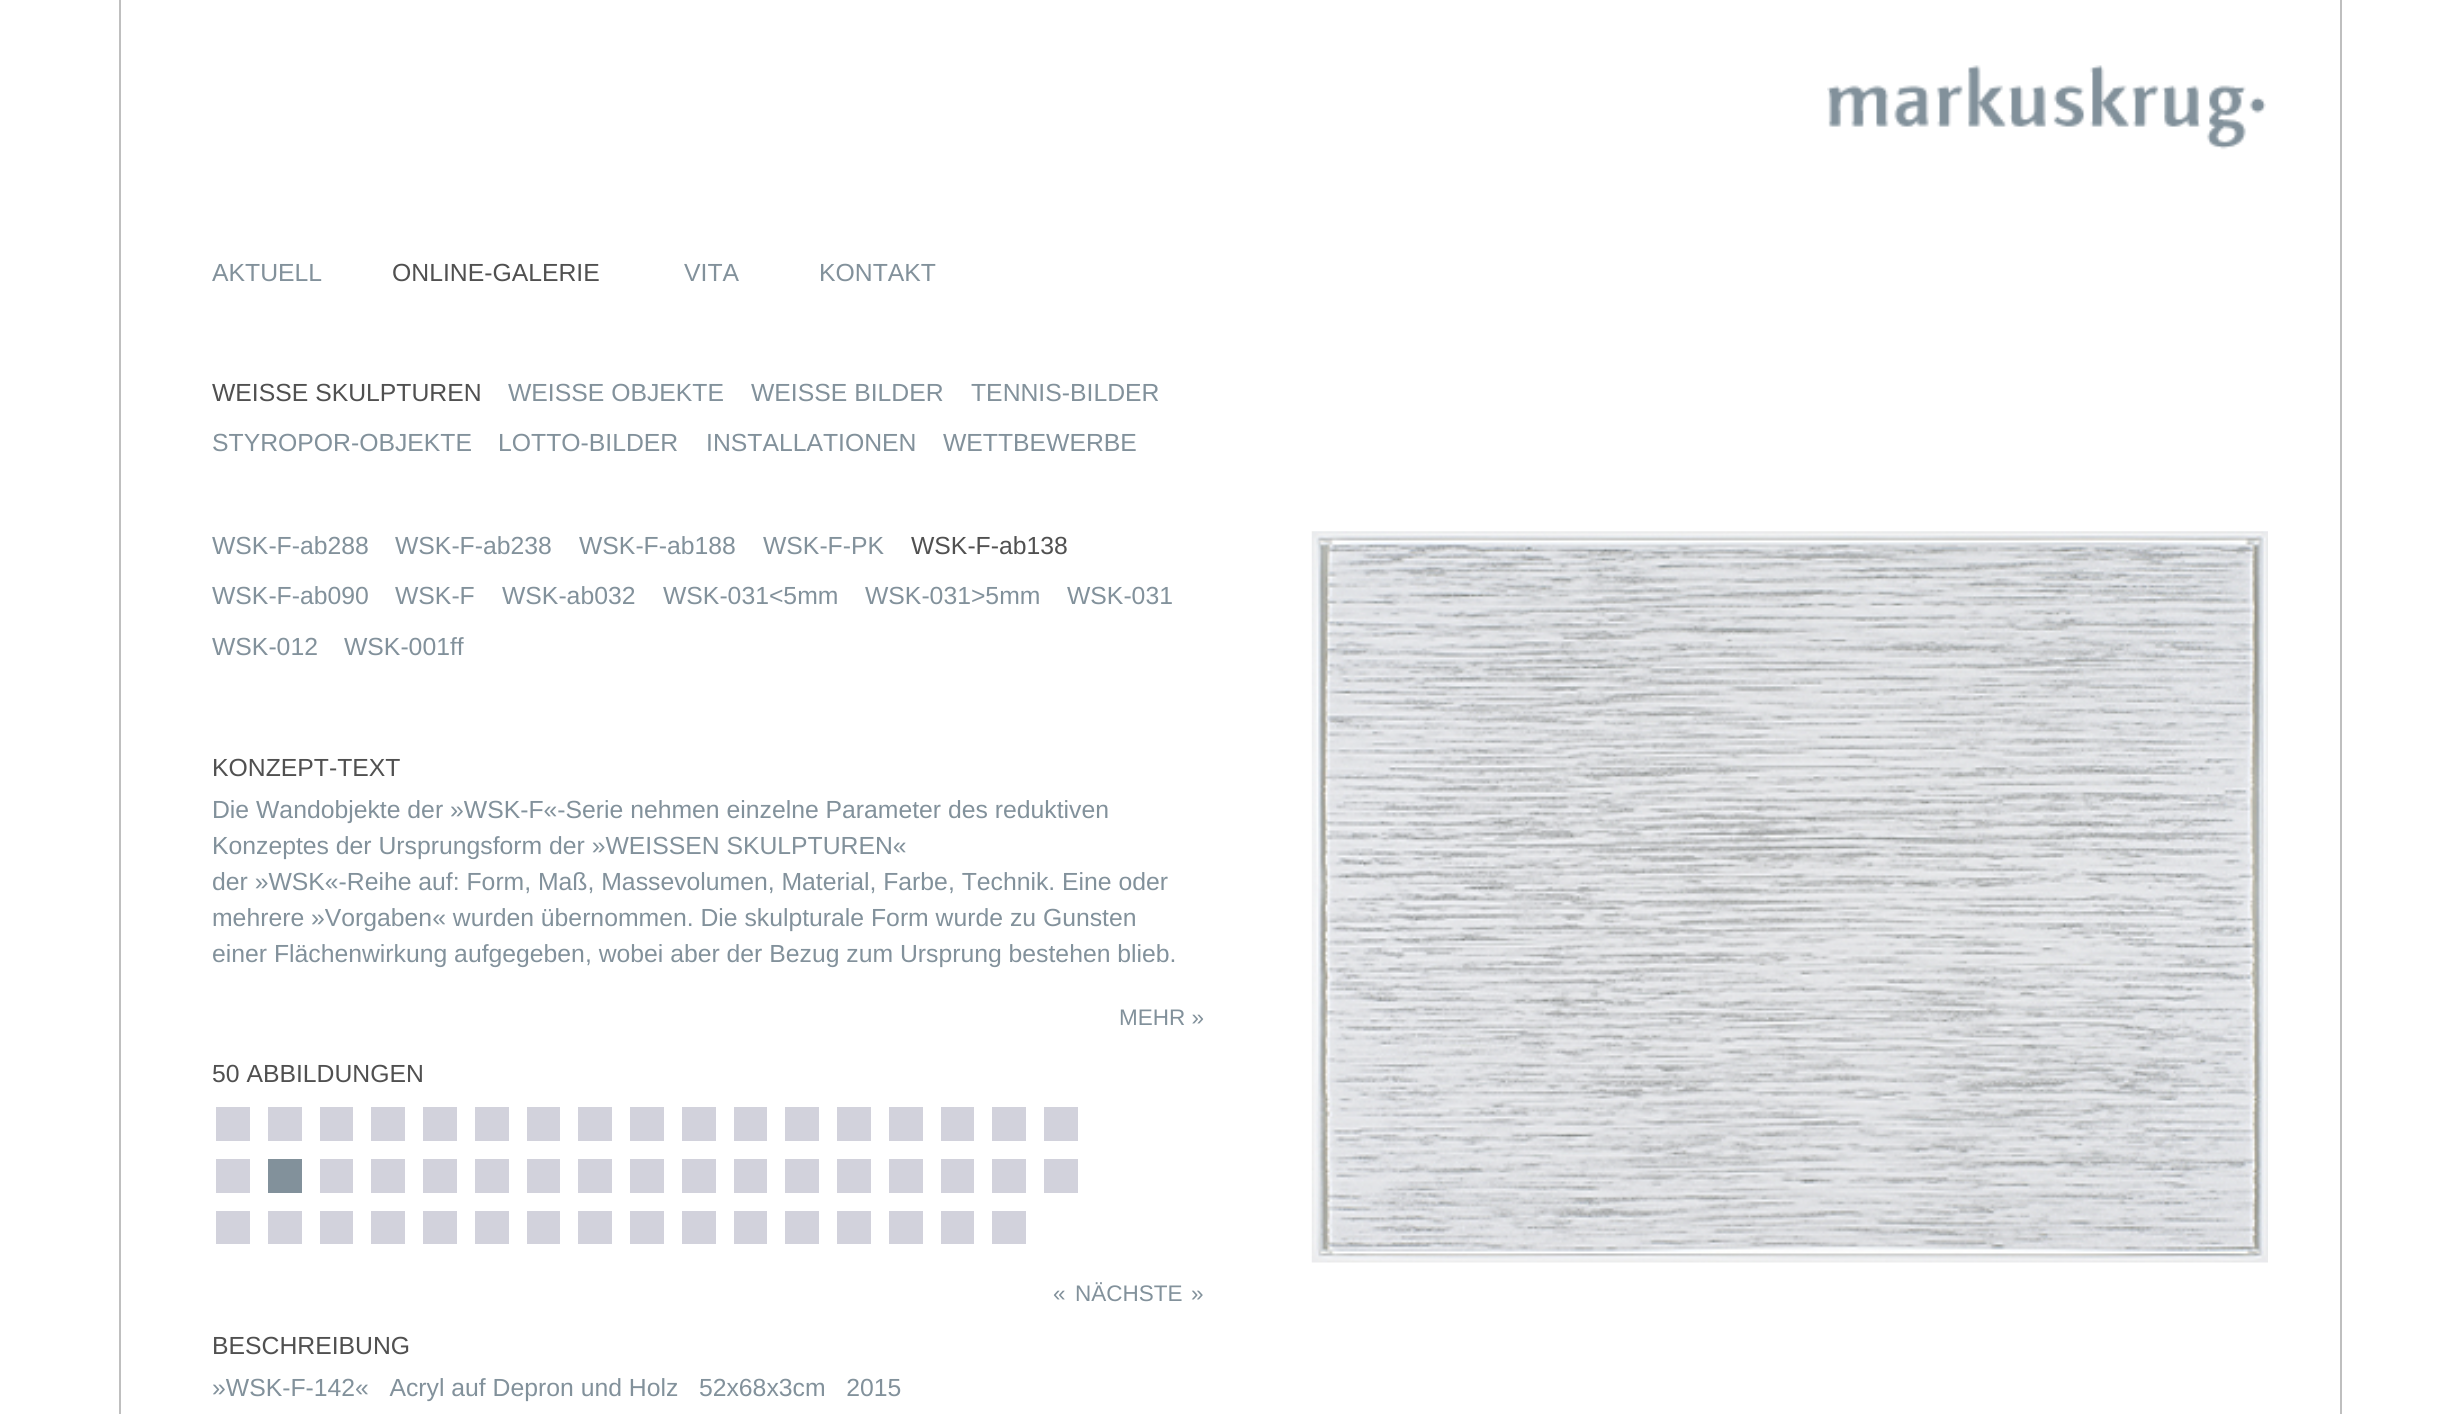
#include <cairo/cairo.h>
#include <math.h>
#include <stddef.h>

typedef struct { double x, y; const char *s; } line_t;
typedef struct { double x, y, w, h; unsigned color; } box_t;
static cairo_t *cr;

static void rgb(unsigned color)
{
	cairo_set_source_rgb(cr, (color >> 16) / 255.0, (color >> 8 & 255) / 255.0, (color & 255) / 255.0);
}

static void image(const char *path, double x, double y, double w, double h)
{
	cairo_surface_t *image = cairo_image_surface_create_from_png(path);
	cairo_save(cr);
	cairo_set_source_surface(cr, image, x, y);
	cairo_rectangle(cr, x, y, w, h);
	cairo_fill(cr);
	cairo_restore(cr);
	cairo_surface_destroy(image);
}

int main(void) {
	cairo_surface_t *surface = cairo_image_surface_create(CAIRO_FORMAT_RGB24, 2460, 1414);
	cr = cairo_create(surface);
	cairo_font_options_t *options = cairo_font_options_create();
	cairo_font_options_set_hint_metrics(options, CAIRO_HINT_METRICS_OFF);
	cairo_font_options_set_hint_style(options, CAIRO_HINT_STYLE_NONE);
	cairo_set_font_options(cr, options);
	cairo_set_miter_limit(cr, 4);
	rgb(0xffffff);
	cairo_paint(cr);
	cairo_rectangle(cr, 120, -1, 2221, 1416);
	rgb(0xbfbfbf);
	cairo_stroke(cr);
	image("img/1.png", 1827, 65, 439, 85);
	{
		static const box_t items[] = {
			{216, 1107, 34, 34, 0xd2d2dc},
			{268, 1107, 34, 34, 0xd2d2dc},
			{320, 1107, 33, 34, 0xd2d2dc},
			{371, 1107, 34, 34, 0xd2d2dc},
			{423, 1107, 34, 34, 0xd2d2dc},
			{475, 1107, 34, 34, 0xd2d2dc},
			{527, 1107, 33, 34, 0xd2d2dc},
			{578, 1107, 34, 34, 0xd2d2dc},
			{630, 1107, 34, 34, 0xd2d2dc},
			{682, 1107, 34, 34, 0xd2d2dc},
			{734, 1107, 33, 34, 0xd2d2dc},
			{785, 1107, 34, 34, 0xd2d2dc},
			{837, 1107, 34, 34, 0xd2d2dc},
			{889, 1107, 34, 34, 0xd2d2dc},
			{941, 1107, 33, 34, 0xd2d2dc},
			{992, 1107, 34, 34, 0xd2d2dc},
			{1044, 1107, 34, 34, 0xd2d2dc},
			{216, 1159, 34, 34, 0xd2d2dc},
			{268, 1159, 34, 34, 0x82919b},
			{320, 1159, 33, 34, 0xd2d2dc},
			{371, 1159, 34, 34, 0xd2d2dc},
			{423, 1159, 34, 34, 0xd2d2dc},
			{475, 1159, 34, 34, 0xd2d2dc},
			{527, 1159, 33, 34, 0xd2d2dc},
			{578, 1159, 34, 34, 0xd2d2dc},
			{630, 1159, 34, 34, 0xd2d2dc},
			{682, 1159, 34, 34, 0xd2d2dc},
			{734, 1159, 33, 34, 0xd2d2dc},
			{785, 1159, 34, 34, 0xd2d2dc},
			{837, 1159, 34, 34, 0xd2d2dc},
			{889, 1159, 34, 34, 0xd2d2dc},
			{941, 1159, 33, 34, 0xd2d2dc},
			{992, 1159, 34, 34, 0xd2d2dc},
			{1044, 1159, 34, 34, 0xd2d2dc},
			{216, 1211, 34, 33, 0xd2d2dc},
			{268, 1211, 34, 33, 0xd2d2dc},
			{320, 1211, 33, 33, 0xd2d2dc},
			{371, 1211, 34, 33, 0xd2d2dc},
			{423, 1211, 34, 33, 0xd2d2dc},
			{475, 1211, 34, 33, 0xd2d2dc},
			{527, 1211, 33, 33, 0xd2d2dc},
			{578, 1211, 34, 33, 0xd2d2dc},
			{630, 1211, 34, 33, 0xd2d2dc},
			{682, 1211, 34, 33, 0xd2d2dc},
			{734, 1211, 33, 33, 0xd2d2dc},
			{785, 1211, 34, 33, 0xd2d2dc},
			{837, 1211, 34, 33, 0xd2d2dc},
			{889, 1211, 34, 33, 0xd2d2dc},
			{941, 1211, 33, 33, 0xd2d2dc},
			{992, 1211, 34, 33, 0xd2d2dc},
		};
		for (size_t i = 0; i < sizeof items / sizeof *items; i++) {
			rgb(items[i].color);
			cairo_rectangle(cr, items[i].x, items[i].y, items[i].w, items[i].h);
			cairo_fill(cr);
		}
	}
	image("img/2.png", 1311, 531, 957, 732);
	cairo_select_font_face(cr, "Liberation Sans", CAIRO_FONT_SLANT_NORMAL, CAIRO_FONT_WEIGHT_NORMAL);
	cairo_set_font_size(cr, 24.75);
	rgb(0x82919b);
	cairo_move_to(cr, 212, 281);
	cairo_show_text(cr, "AKTUELL");
	rgb(0x505050);
	cairo_move_to(cr, 392, 281);
	cairo_show_text(cr, "ONLINE-GALERIE");
	rgb(0x82919b);
	cairo_move_to(cr, 684, 281);
	cairo_show_text(cr, "VITA");
	cairo_move_to(cr, 819, 281);
	cairo_show_text(cr, "KONTAKT");
	rgb(0x505050);
	cairo_move_to(cr, 212, 401);
	cairo_show_text(cr, "WEISSE SKULPTUREN");
	rgb(0x82919b);
	{
		static const line_t items[] = {
			{508, 401, "WEISSE OBJEKTE"},
			{751, 401, "WEISSE BILDER"},
			{971, 401, "TENNIS-BILDER"},
			{212, 451, "STYROPOR-OBJEKTE"},
			{498, 451, "LOTTO-BILDER"},
			{706, 451, "INSTALLATIONEN"},
			{943, 451, "WETTBEWERBE"},
			{212, 554, "WSK-F-ab288"},
			{395, 554, "WSK-F-ab238"},
			{579, 554, "WSK-F-ab188"},
			{763, 554, "WSK-F-PK"},
		};
		for (size_t i = 0; i < sizeof items / sizeof *items; i++) {
			cairo_move_to(cr, items[i].x, items[i].y);
			cairo_show_text(cr, items[i].s);
		}
	}
	rgb(0x505050);
	cairo_move_to(cr, 911, 554);
	cairo_show_text(cr, "WSK-F-ab138");
	rgb(0x82919b);
	{
		static const line_t items[] = {
			{212, 604, "WSK-F-ab090"},
			{395, 604, "WSK-F"},
			{502, 604, "WSK-ab032"},
			{663, 604, "WSK-031<5mm"},
			{865, 604, "WSK-031>5mm"},
			{1067, 604, "WSK-031"},
			{212, 655, "WSK-012"},
			{344, 655, "WSK-001ff"},
		};
		for (size_t i = 0; i < sizeof items / sizeof *items; i++) {
			cairo_move_to(cr, items[i].x, items[i].y);
			cairo_show_text(cr, items[i].s);
		}
	}
	rgb(0x505050);
	cairo_move_to(cr, 212, 776);
	cairo_show_text(cr, "KONZEPT-TEXT");
	rgb(0x82919b);
	{
		static const line_t items[] = {
			{212, 818, "Die Wandobjekte der »WSK-F«-Serie nehmen einzelne Parameter des reduktiven"},
			{212, 854, "Konzeptes der Ursprungsform der »WEISSEN SKULPTUREN«"},
			{212, 890, "der »WSK«-Reihe auf: Form, Maß, Massevolumen, Material, Farbe, Technik. Eine oder"},
			{212, 926, "mehrere »Vorgaben« wurden übernommen. Die skulpturale Form wurde zu Gunsten"},
			{212, 962, "einer Flächenwirkung aufgegeben, wobei aber der Bezug zum Ursprung bestehen blieb."},
		};
		for (size_t i = 0; i < sizeof items / sizeof *items; i++) {
			cairo_move_to(cr, items[i].x, items[i].y);
			cairo_show_text(cr, items[i].s);
		}
	}
	cairo_set_font_size(cr, 22.5);
	cairo_move_to(cr, 1119, 1025);
	cairo_show_text(cr, "MEHR »");
	cairo_set_font_size(cr, 24.75);
	rgb(0x505050);
	cairo_move_to(cr, 212, 1082);
	cairo_show_text(cr, "50 ABBILDUNGEN");
	cairo_set_font_size(cr, 22.5);
	rgb(0x82919b);
	{
		static const line_t items[] = {
			{1053, 1301, "«"},
			{1075, 1301, "NÄCHSTE"},
			{1191, 1301, "»"},
		};
		for (size_t i = 0; i < sizeof items / sizeof *items; i++) {
			cairo_move_to(cr, items[i].x, items[i].y);
			cairo_show_text(cr, items[i].s);
		}
	}
	cairo_set_font_size(cr, 24.75);
	rgb(0x505050);
	cairo_move_to(cr, 212, 1354);
	cairo_show_text(cr, "BESCHREIBUNG");
	rgb(0x82919b);
	cairo_move_to(cr, 212, 1396);
	cairo_show_text(cr, "»WSK-F-142«   Acryl auf Depron und Holz   52x68x3cm   2015");
	cairo_surface_write_to_png(surface, "page.png");
	cairo_font_options_destroy(options);
	cairo_destroy(cr);
	cairo_surface_destroy(surface);
	return 0;
}
